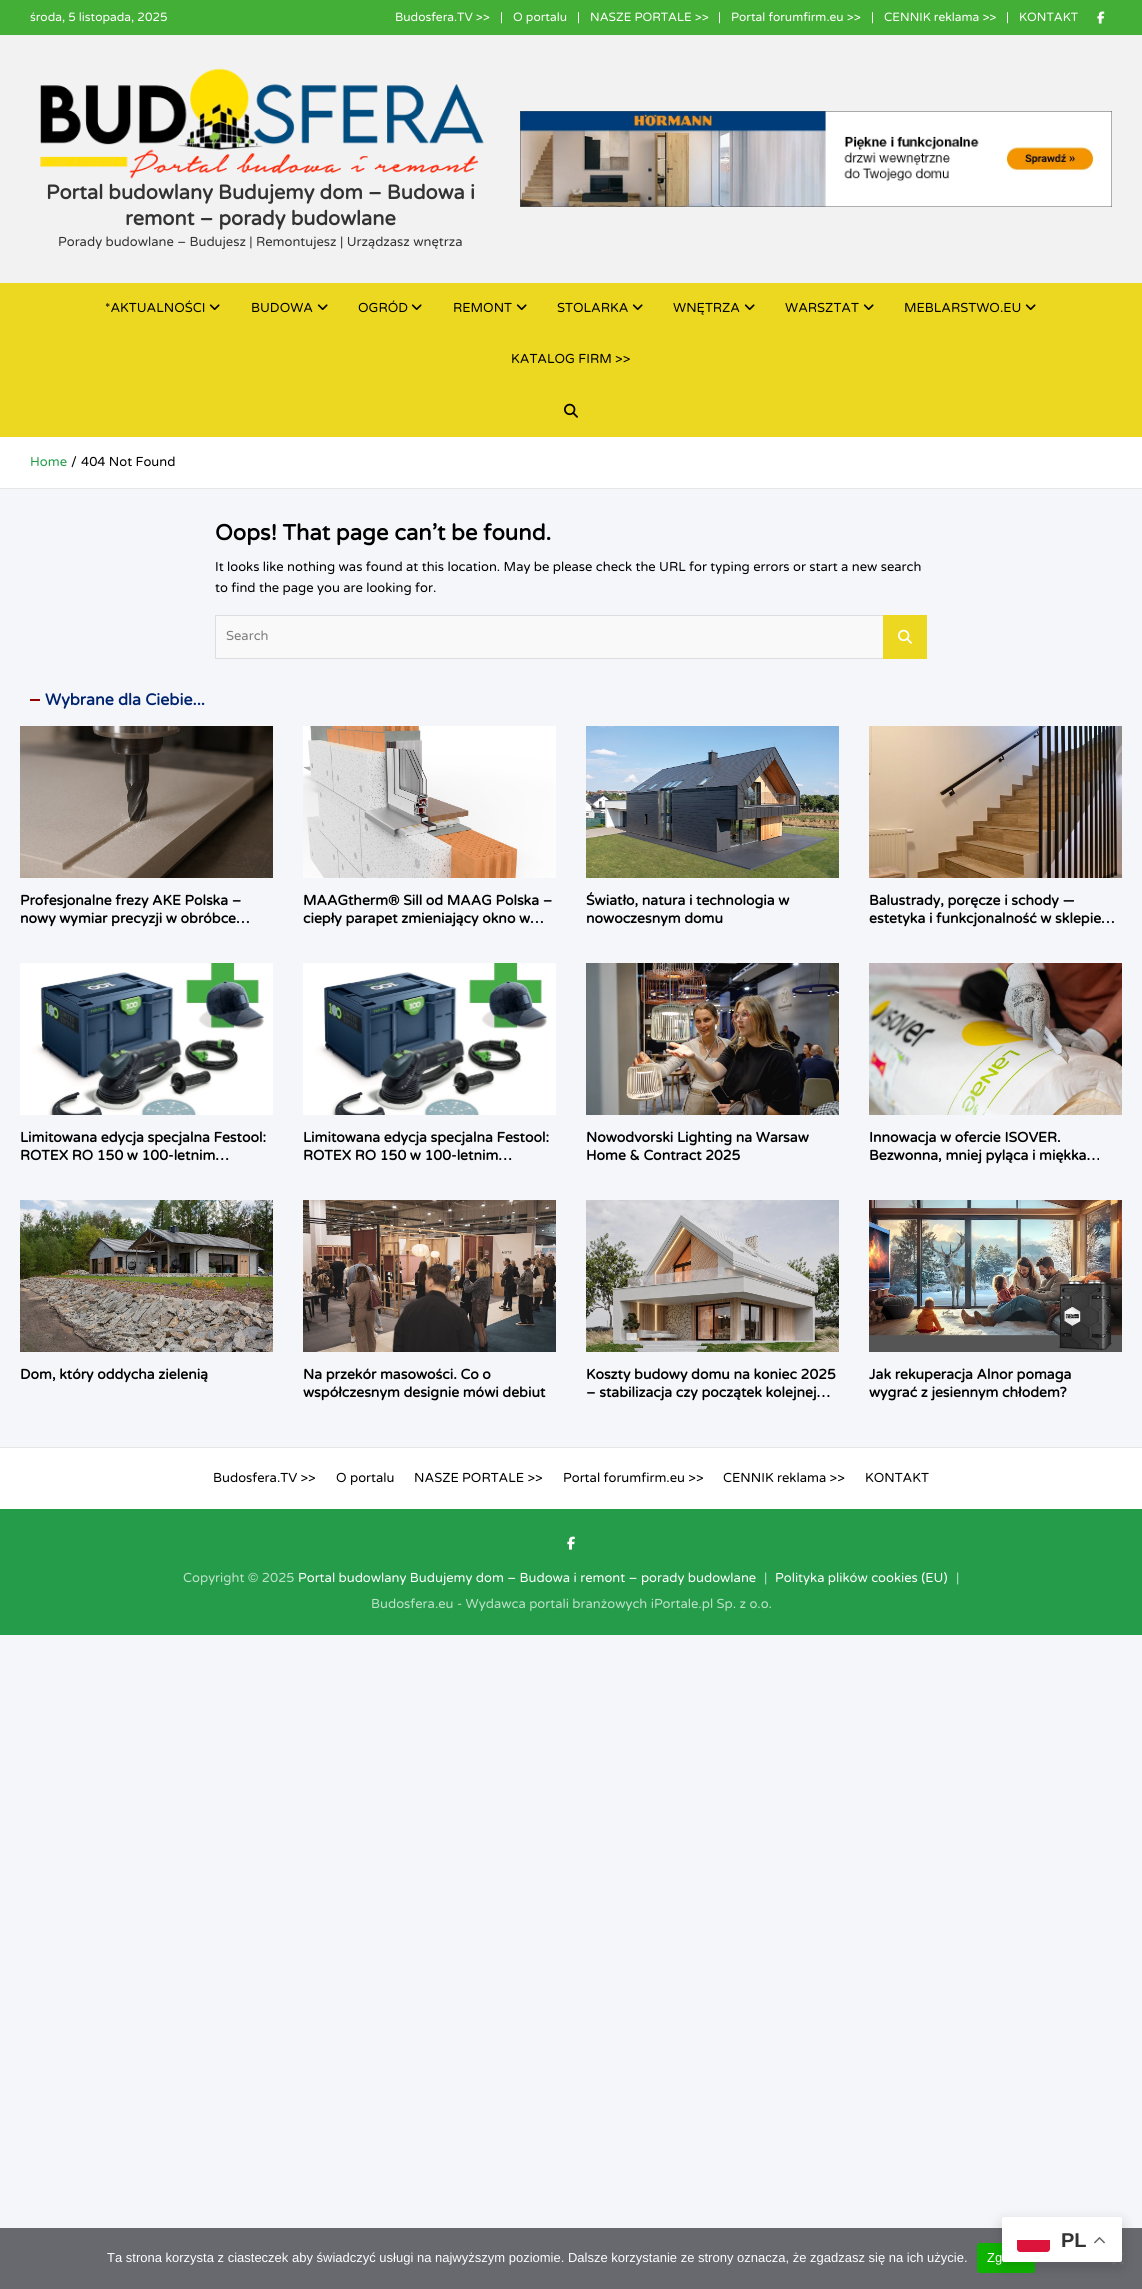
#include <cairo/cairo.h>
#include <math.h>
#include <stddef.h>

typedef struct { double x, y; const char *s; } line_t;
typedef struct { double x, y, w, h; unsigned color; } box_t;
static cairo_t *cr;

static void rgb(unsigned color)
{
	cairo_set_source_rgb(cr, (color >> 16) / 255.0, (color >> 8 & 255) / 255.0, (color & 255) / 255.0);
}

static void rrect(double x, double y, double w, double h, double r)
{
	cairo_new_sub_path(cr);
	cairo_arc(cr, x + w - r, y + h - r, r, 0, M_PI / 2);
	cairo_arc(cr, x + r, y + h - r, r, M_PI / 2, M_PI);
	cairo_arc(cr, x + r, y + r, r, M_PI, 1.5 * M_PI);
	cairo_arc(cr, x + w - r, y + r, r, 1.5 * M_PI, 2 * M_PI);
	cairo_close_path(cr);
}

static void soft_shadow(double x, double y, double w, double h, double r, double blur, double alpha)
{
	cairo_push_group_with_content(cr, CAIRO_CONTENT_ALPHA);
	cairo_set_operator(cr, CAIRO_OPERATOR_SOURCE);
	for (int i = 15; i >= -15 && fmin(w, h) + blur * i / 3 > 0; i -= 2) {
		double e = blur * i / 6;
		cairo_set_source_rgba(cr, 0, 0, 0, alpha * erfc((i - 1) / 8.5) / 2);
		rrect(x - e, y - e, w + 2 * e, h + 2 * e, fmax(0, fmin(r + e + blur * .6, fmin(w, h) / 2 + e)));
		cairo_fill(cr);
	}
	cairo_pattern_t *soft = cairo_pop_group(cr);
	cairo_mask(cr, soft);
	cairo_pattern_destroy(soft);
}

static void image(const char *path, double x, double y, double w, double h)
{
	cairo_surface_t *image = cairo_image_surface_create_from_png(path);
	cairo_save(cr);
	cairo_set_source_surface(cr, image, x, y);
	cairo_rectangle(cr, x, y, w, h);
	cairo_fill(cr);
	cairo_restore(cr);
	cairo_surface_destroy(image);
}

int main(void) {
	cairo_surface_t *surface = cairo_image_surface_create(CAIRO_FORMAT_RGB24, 1142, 2289);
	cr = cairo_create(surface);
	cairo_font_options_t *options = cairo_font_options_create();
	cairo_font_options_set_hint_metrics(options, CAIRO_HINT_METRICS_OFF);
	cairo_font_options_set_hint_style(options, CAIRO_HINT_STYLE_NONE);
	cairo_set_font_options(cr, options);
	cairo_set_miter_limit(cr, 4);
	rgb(0xf4f6f9);
	cairo_paint(cr);
	rgb(0x44af36);
	cairo_rectangle(cr, 0, 0, 1142, 35);
	cairo_fill(cr);
	image("img/1.png", 1097, 11, 8, 13);
	rgb(0xf2f2f2);
	cairo_rectangle(cr, 0, 35, 1142, 248);
	cairo_fill(cr);
	image("img/2.png", 520, 111, 592, 96);
	image("img/3.png", 40, 68, 444, 111);
	rgb(0xedd821);
	cairo_rectangle(cr, 0, 283, 1142, 154);
	cairo_fill(cr);
	image("img/4.png", 209, 304, 11, 6);
	image("img/4.png", 317, 304, 11, 6);
	image("img/4.png", 411, 304, 11, 6);
	image("img/4.png", 516, 304, 11, 6);
	image("img/4.png", 632, 304, 11, 6);
	image("img/4.png", 744, 304, 11, 6);
	image("img/4.png", 863, 304, 11, 6);
	image("img/4.png", 1025, 304, 11, 6);
	image("img/5.png", 564, 403, 14, 15);
	{
		static const box_t items[] = {
			{0, 437, 1142, 51, 0xffffff},
			{0, 488, 1142, 1, 0xe6e6e6},
			{216, 616, 667, 42, 0xf9f9f9},
		};
		for (size_t i = 0; i < sizeof items / sizeof *items; i++) {
			rgb(items[i].color);
			cairo_rectangle(cr, items[i].x, items[i].y, items[i].w, items[i].h);
			cairo_fill(cr);
		}
	}
	rgb(0xdcdde0);
	cairo_new_path(cr);
	cairo_move_to(cr, 215, 615);
	cairo_line_to(cr, 883, 615);
	cairo_line_to(cr, 883, 616);
	cairo_line_to(cr, 216, 616);
	cairo_close_path(cr);
	cairo_fill(cr);
	cairo_new_path(cr);
	cairo_move_to(cr, 883, 659);
	cairo_line_to(cr, 215, 659);
	cairo_line_to(cr, 216, 658);
	cairo_line_to(cr, 883, 658);
	cairo_close_path(cr);
	cairo_fill(cr);
	cairo_set_source_rgba(cr, 0, 0, 0, 0.1);
	cairo_new_path(cr);
	cairo_move_to(cr, 215, 659);
	cairo_line_to(cr, 215, 615);
	cairo_line_to(cr, 216, 616);
	cairo_line_to(cr, 216, 658);
	cairo_close_path(cr);
	cairo_fill(cr);
	rgb(0xedd821);
	cairo_rectangle(cr, 883, 615, 44, 44);
	cairo_fill(cr);
	image("img/6.png", 898, 629, 14, 15);
	rgb(0x950202);
	cairo_rectangle(cr, 30, 699, 10, 2);
	cairo_fill(cr);
	image("img/7.png", 20, 726, 253, 152);
	image("img/8.png", 303, 726, 253, 152);
	image("img/9.png", 586, 726, 253, 152);
	image("img/10.png", 869, 726, 253, 152);
	image("img/11.png", 20, 963, 253, 152);
	image("img/11.png", 303, 963, 253, 152);
	image("img/12.png", 586, 963, 253, 152);
	image("img/13.png", 869, 963, 253, 152);
	image("img/14.png", 20, 1200, 253, 152);
	image("img/15.png", 303, 1200, 253, 152);
	image("img/16.png", 586, 1200, 253, 152);
	rgb(0x555555);
	cairo_rectangle(cr, 869, 1334, 253, 18);
	cairo_fill(cr);
	image("img/17.png", 869, 1200, 253, 150);
	{
		static const box_t items[] = {
			{0, 1448, 1142, 61, 0xffffff},
			{0, 1447, 1142, 1, 0xe6e6e6},
			{0, 1509, 1142, 126, 0x249c4a},
		};
		for (size_t i = 0; i < sizeof items / sizeof *items; i++) {
			rgb(items[i].color);
			cairo_rectangle(cr, items[i].x, items[i].y, items[i].w, items[i].h);
			cairo_fill(cr);
		}
	}
	image("img/18.png", 567, 1536, 8, 14);
	rgb(0x68696f);
	cairo_rectangle(cr, 0, 2228, 1142, 61);
	cairo_fill(cr);
	rgb(0x0eb200);
	rrect(977, 2243, 58, 30, 3);
	cairo_fill(cr);
	rgb(0x747578);
	cairo_new_path(cr);
	cairo_move_to(cr, 1122.5, 2252.5);
	cairo_line_to(cr, 1124, 2254);
	cairo_line_to(cr, 1113.5, 2265);
	cairo_line_to(cr, 1112, 2263.5);
	cairo_close_path(cr);
	cairo_fill(cr);
	cairo_new_path(cr);
	cairo_move_to(cr, 1112, 2254);
	cairo_line_to(cr, 1113.5, 2252.5);
	cairo_line_to(cr, 1124, 2263.5);
	cairo_line_to(cr, 1122.5, 2265);
	cairo_close_path(cr);
	cairo_fill(cr);
	rgb(0x000000);
	soft_shadow(1002, 2222, 120, 45, 2, 7.5, 0.15);
	rgb(0xffffff);
	rrect(1002, 2217, 120, 45, 2);
	cairo_fill(cr);
	rgb(0xdc143c);
	cairo_new_path(cr);
	cairo_move_to(cr, 1017, 2240);
	cairo_line_to(cr, 1050, 2240);
	cairo_line_to(cr, 1050, 2249);
	cairo_curve_to(cr, 1050, 2250.5, 1048.5, 2252, 1047, 2252);
	cairo_line_to(cr, 1020, 2252);
	cairo_curve_to(cr, 1018.5, 2252, 1017, 2250.5, 1017, 2249);
	cairo_close_path(cr);
	cairo_fill(cr);
	image("img/19.png", 1094, 2237, 11, 7);
	cairo_select_font_face(cr, "Varela Round", CAIRO_FONT_SLANT_NORMAL, CAIRO_FONT_WEIGHT_NORMAL);
	cairo_set_font_size(cr, 12);
	rgb(0xffffff);
	{
		static const line_t items[] = {
			{30, 21, "środa, 5 listopada, 2025"},
			{395, 21, "Budosfera.TV >>"},
			{500, 21, "|"},
			{513, 21, "O portalu"},
			{577, 21, "|"},
			{590, 21, "NASZE PORTALE >>"},
			{718, 21, "|"},
			{731, 21, "Portal forumfirm.eu >>"},
			{871, 21, "|"},
			{884, 21, "CENNIK reklama >>"},
			{1006, 21, "|"},
			{1019, 21, "KONTAKT"},
		};
		for (size_t i = 0; i < sizeof items / sizeof *items; i++) {
			cairo_move_to(cr, items[i].x, items[i].y);
			cairo_show_text(cr, items[i].s);
		}
	}
	cairo_select_font_face(cr, "Varela Round", CAIRO_FONT_SLANT_NORMAL, CAIRO_FONT_WEIGHT_BOLD);
	cairo_set_font_size(cr, 20);
	rgb(0x333333);
	cairo_move_to(cr, 46, 199);
	cairo_show_text(cr, "Portal budowlany Budujemy dom – Budowa i");
	cairo_move_to(cr, 125, 225);
	cairo_show_text(cr, "remont – porady budowlane");
	cairo_select_font_face(cr, "Varela Round", CAIRO_FONT_SLANT_NORMAL, CAIRO_FONT_WEIGHT_NORMAL);
	cairo_set_font_size(cr, 13);
	cairo_move_to(cr, 58, 246);
	cairo_show_text(cr, "Porady budowlane – Budujesz | Remontujesz | Urządzasz wnętrza");
	rgb(0x000000);
	{
		static const line_t items[] = {
			{105, 312, "*AKTUALNOŚCI"},
			{251, 312, "BUDOWA"},
			{358, 312, "OGRÓD"},
			{453, 312, "REMONT"},
			{557, 312, "STOLARKA"},
			{673, 312, "WNĘTRZA"},
			{785, 312, "WARSZTAT"},
			{904, 312, "MEBLARSTWO.EU"},
			{511, 363, "KATALOG FIRM >>"},
		};
		for (size_t i = 0; i < sizeof items / sizeof *items; i++) {
			cairo_move_to(cr, items[i].x, items[i].y);
			cairo_show_text(cr, items[i].s);
		}
	}
	rgb(0x249c4a);
	cairo_move_to(cr, 30, 466);
	cairo_show_text(cr, "Home");
	rgb(0x000000);
	cairo_move_to(cr, 71, 466);
	cairo_show_text(cr, "/");
	cairo_move_to(cr, 81, 466);
	cairo_show_text(cr, "404 Not Found");
	cairo_select_font_face(cr, "Varela Round", CAIRO_FONT_SLANT_NORMAL, CAIRO_FONT_WEIGHT_BOLD);
	cairo_set_font_size(cr, 22);
	cairo_move_to(cr, 215, 540);
	cairo_show_text(cr, "Oops! That page can’t be found.");
	cairo_select_font_face(cr, "Varela Round", CAIRO_FONT_SLANT_NORMAL, CAIRO_FONT_WEIGHT_NORMAL);
	cairo_set_font_size(cr, 13);
	cairo_move_to(cr, 215, 571);
	cairo_show_text(cr, "It looks like nothing was found at this location. May be please check the URL for typing errors or start a new search");
	cairo_move_to(cr, 215, 592);
	cairo_show_text(cr, "to find the page you are looking for.");
	rgb(0x7d7d7d);
	cairo_move_to(cr, 226, 640);
	cairo_show_text(cr, "Search");
	cairo_select_font_face(cr, "Varela Round", CAIRO_FONT_SLANT_NORMAL, CAIRO_FONT_WEIGHT_BOLD);
	cairo_set_font_size(cr, 16);
	rgb(0x00236e);
	cairo_move_to(cr, 45, 705);
	cairo_show_text(cr, "Wybrane dla Ciebie...");
	cairo_set_font_size(cr, 14);
	rgb(0x000000);
	{
		static const line_t items[] = {
			{20, 905, "Profesjonalne frezy AKE Polska –"},
			{20, 923, "nowy wymiar precyzji w obróbce…"},
			{303, 905, "MAAGtherm® Sill od MAAG Polska –"},
			{303, 923, "ciepły parapet zmieniający okno w…"},
			{586, 905, "Światło, natura i technologia w"},
			{586, 923, "nowoczesnym domu"},
			{869, 905, "Balustrady, poręcze i schody —"},
			{869, 923, "estetyka i funkcjonalność w sklepie…"},
			{20, 1142, "Limitowana edycja specjalna Festool:"},
			{20, 1160, "ROTEX RO 150 w 100-letnim…"},
			{303, 1142, "Limitowana edycja specjalna Festool:"},
			{303, 1160, "ROTEX RO 150 w 100-letnim…"},
			{586, 1142, "Nowodvorski Lighting na Warsaw"},
			{586, 1160, "Home & Contract 2025"},
			{869, 1142, "Innowacja w ofercie ISOVER."},
			{869, 1160, "Bezwonna, mniej pyląca i miękka…"},
			{20, 1379, "Dom, który oddycha zielenią"},
			{303, 1379, "Na przekór masowości. Co o"},
			{303, 1397, "współczesnym designie mówi debiut"},
			{586, 1379, "Koszty budowy domu na koniec 2025"},
			{586, 1397, "– stabilizacja czy początek kolejnej…"},
			{869, 1379, "Jak rekuperacja Alnor pomaga"},
			{869, 1397, "wygrać z jesiennym chłodem?"},
		};
		for (size_t i = 0; i < sizeof items / sizeof *items; i++) {
			cairo_move_to(cr, items[i].x, items[i].y);
			cairo_show_text(cr, items[i].s);
		}
	}
	cairo_select_font_face(cr, "Varela Round", CAIRO_FONT_SLANT_NORMAL, CAIRO_FONT_WEIGHT_NORMAL);
	cairo_set_font_size(cr, 13);
	{
		static const line_t items[] = {
			{213, 1482, "Budosfera.TV >>"},
			{336, 1482, "O portalu"},
			{414, 1482, "NASZE PORTALE >>"},
			{563, 1482, "Portal forumfirm.eu >>"},
			{723, 1482, "CENNIK reklama >>"},
			{865, 1482, "KONTAKT"},
		};
		for (size_t i = 0; i < sizeof items / sizeof *items; i++) {
			cairo_move_to(cr, items[i].x, items[i].y);
			cairo_show_text(cr, items[i].s);
		}
	}
	rgb(0xbde1c9);
	cairo_move_to(cr, 183, 1582);
	cairo_show_text(cr, "Copyright © 2025");
	rgb(0xffffff);
	cairo_move_to(cr, 298, 1582);
	cairo_show_text(cr, "Portal budowlany Budujemy dom – Budowa i remont – porady budowlane");
	rgb(0xbde1c9);
	cairo_move_to(cr, 764, 1582);
	cairo_show_text(cr, "|");
	rgb(0xffffff);
	cairo_move_to(cr, 775, 1582);
	cairo_show_text(cr, "Polityka plików cookies (EU)");
	rgb(0xbde1c9);
	cairo_move_to(cr, 956, 1582);
	cairo_show_text(cr, "|");
	cairo_move_to(cr, 371, 1608);
	cairo_show_text(cr, "Budosfera.eu - Wydawca portali branżowych iPortale.pl Sp. z o.o.");
	cairo_select_font_face(cr, "Liberation Sans", CAIRO_FONT_SLANT_NORMAL, CAIRO_FONT_WEIGHT_BOLD);
	cairo_set_font_size(cr, 20);
	rgb(0x333333);
	cairo_move_to(cr, 1061, 2247);
	cairo_show_text(cr, "PL");
	cairo_select_font_face(cr, "Liberation Sans", CAIRO_FONT_SLANT_NORMAL, CAIRO_FONT_WEIGHT_NORMAL);
	cairo_set_font_size(cr, 13);
	rgb(0xffffff);
	cairo_move_to(cr, 107, 2262);
	cairo_show_text(cr, "Ta strona korzysta z ciasteczek aby świadczyć usługi na najwyższym poziomie. Dalsze korzystanie ze strony oznacza, że zgadzasz się na ich użycie.");
	cairo_move_to(cr, 987, 2262);
	cairo_show_text(cr, "Zg");
	cairo_surface_write_to_png(surface, "page.png");
	cairo_font_options_destroy(options);
	cairo_destroy(cr);
	cairo_surface_destroy(surface);
	return 0;
}
